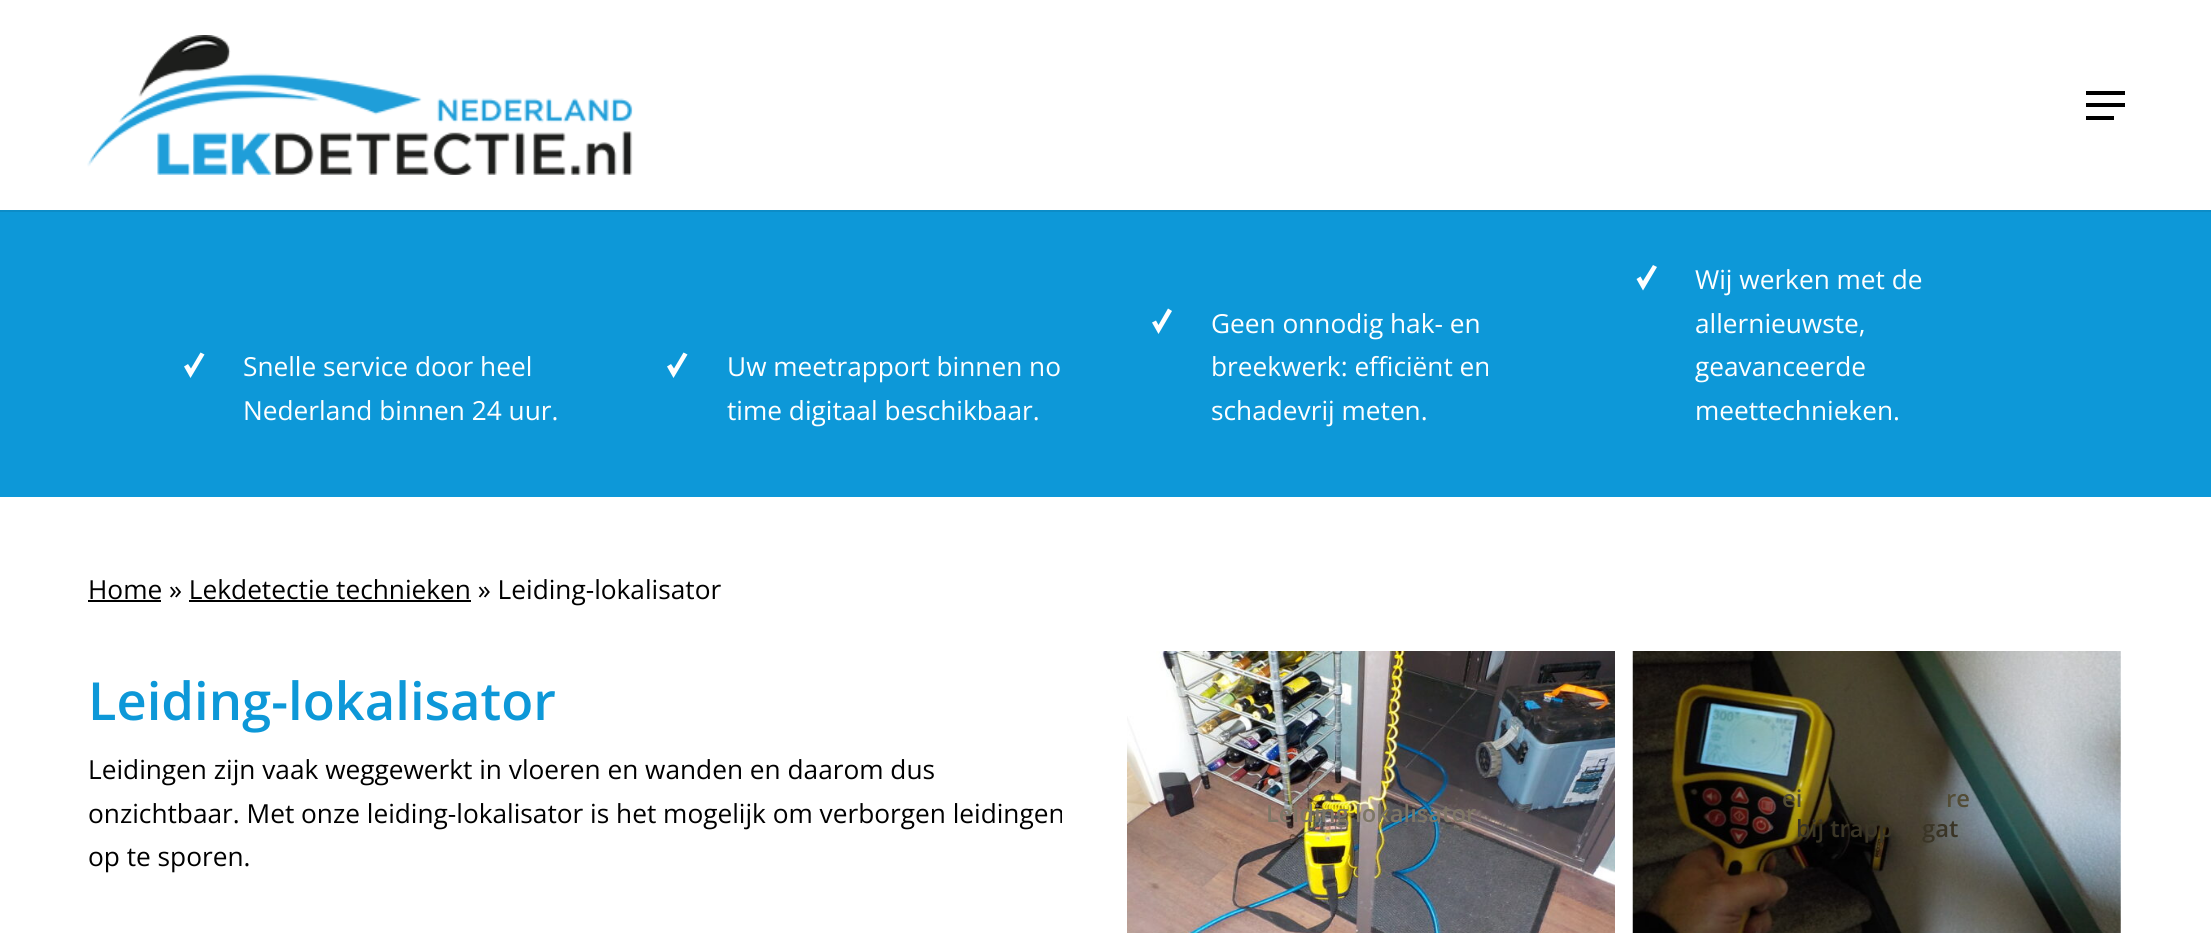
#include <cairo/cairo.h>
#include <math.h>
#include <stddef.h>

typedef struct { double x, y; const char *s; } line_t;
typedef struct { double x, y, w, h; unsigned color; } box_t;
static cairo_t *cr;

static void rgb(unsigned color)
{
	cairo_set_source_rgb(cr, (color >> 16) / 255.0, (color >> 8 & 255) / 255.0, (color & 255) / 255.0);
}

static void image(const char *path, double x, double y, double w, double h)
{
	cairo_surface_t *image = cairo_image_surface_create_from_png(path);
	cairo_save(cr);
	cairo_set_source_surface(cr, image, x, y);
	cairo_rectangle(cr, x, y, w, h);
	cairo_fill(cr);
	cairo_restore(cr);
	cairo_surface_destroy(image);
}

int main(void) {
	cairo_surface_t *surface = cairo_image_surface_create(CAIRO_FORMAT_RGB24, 2211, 933);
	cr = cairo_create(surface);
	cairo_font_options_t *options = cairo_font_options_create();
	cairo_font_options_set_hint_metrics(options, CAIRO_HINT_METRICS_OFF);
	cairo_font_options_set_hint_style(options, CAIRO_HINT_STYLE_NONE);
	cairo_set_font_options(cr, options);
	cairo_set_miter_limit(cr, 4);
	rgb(0xffffff);
	cairo_paint(cr);
	rgb(0x0c8cc7);
	cairo_rectangle(cr, 0, 210, 2211, 2);
	cairo_fill(cr);
	image("img/1.png", 87, 35, 546, 140);
	{
		static const box_t items[] = {
			{2086, 91, 39, 4, 0x000000},
			{2086, 116, 28, 4, 0x000000},
			{2086, 103, 39, 4, 0x000000},
			{0, 212, 2211, 285, 0x0d98d8},
		};
		for (size_t i = 0; i < sizeof items / sizeof *items; i++) {
			rgb(items[i].color);
			cairo_rectangle(cr, items[i].x, items[i].y, items[i].w, items[i].h);
			cairo_fill(cr);
		}
	}
	rgb(0xffffff);
	cairo_new_path(cr);
	cairo_move_to(cr, 190.5, 378);
	cairo_line_to(cr, 184, 366.5);
	cairo_line_to(cr, 188, 364);
	cairo_line_to(cr, 191, 368.5);
	cairo_line_to(cr, 200.5, 352.5);
	cairo_line_to(cr, 204.5, 354.5);
	cairo_close_path(cr);
	cairo_fill(cr);
	cairo_new_path(cr);
	cairo_move_to(cr, 673.5, 378);
	cairo_line_to(cr, 667, 366.5);
	cairo_line_to(cr, 671, 364);
	cairo_line_to(cr, 674, 368.5);
	cairo_line_to(cr, 683.5, 352.5);
	cairo_line_to(cr, 687.5, 354.5);
	cairo_close_path(cr);
	cairo_fill(cr);
	cairo_new_path(cr);
	cairo_move_to(cr, 1158.5, 334);
	cairo_line_to(cr, 1152, 322.5);
	cairo_line_to(cr, 1156, 320.5);
	cairo_line_to(cr, 1158.5, 325);
	cairo_line_to(cr, 1168, 308.5);
	cairo_line_to(cr, 1172, 311);
	cairo_close_path(cr);
	cairo_fill(cr);
	cairo_new_path(cr);
	cairo_move_to(cr, 1643, 290.5);
	cairo_line_to(cr, 1636.5, 279);
	cairo_line_to(cr, 1640.5, 276.5);
	cairo_line_to(cr, 1643, 281);
	cairo_line_to(cr, 1653, 265);
	cairo_line_to(cr, 1657, 267);
	cairo_close_path(cr);
	cairo_fill(cr);
	rgb(0x000000);
	cairo_rectangle(cr, 88, 600, 73, 2);
	cairo_fill(cr);
	cairo_rectangle(cr, 189, 600, 282, 2);
	cairo_fill(cr);
	image("img/2.png", 1127, 651, 488, 282);
	image("img/3.png", 1632, 651, 489, 282);
	cairo_select_font_face(cr, "Open Sans", CAIRO_FONT_SLANT_NORMAL, CAIRO_FONT_WEIGHT_NORMAL);
	cairo_set_font_size(cr, 26.25);
	rgb(0xffffff);
	{
		static const line_t items[] = {
			{243, 376, "Snelle service door heel"},
			{243, 420, "Nederland binnen 24 uur."},
			{727, 376, "Uw meetrapport binnen no"},
			{727, 420, "time digitaal beschikbaar."},
			{1211, 333, "Geen onnodig hak- en"},
			{1211, 376, "breekwerk: efficiënt en"},
			{1211, 420, "schadevrij meten."},
			{1695, 289, "Wij werken met de"},
			{1695, 333, "allernieuwste,"},
			{1695, 376, "geavanceerde"},
			{1695, 420, "meettechnieken."},
		};
		for (size_t i = 0; i < sizeof items / sizeof *items; i++) {
			cairo_move_to(cr, items[i].x, items[i].y);
			cairo_show_text(cr, items[i].s);
		}
	}
	rgb(0x000000);
	cairo_move_to(cr, 88, 599);
	cairo_show_text(cr, "Home » Lekdetectie technieken » Leiding-lokalisator");
	cairo_select_font_face(cr, "Open Sans SemiBold", CAIRO_FONT_SLANT_NORMAL, CAIRO_FONT_WEIGHT_NORMAL);
	cairo_set_font_size(cr, 52.5);
	rgb(0x0d98d8);
	cairo_move_to(cr, 88, 720);
	cairo_show_text(cr, "Leiding-lokalisator");
	cairo_select_font_face(cr, "Open Sans", CAIRO_FONT_SLANT_NORMAL, CAIRO_FONT_WEIGHT_NORMAL);
	cairo_set_font_size(cr, 26.25);
	rgb(0x000000);
	{
		static const line_t items[] = {
			{88, 779, "Leidingen zijn vaak weggewerkt in vloeren en wanden en daarom dus"},
			{88, 823, "onzichtbaar. Met onze leiding-lokalisator is het mogelijk om verborgen leidingen"},
			{88, 866, "op te sporen."},
		};
		for (size_t i = 0; i < sizeof items / sizeof *items; i++) {
			cairo_move_to(cr, items[i].x, items[i].y);
			cairo_show_text(cr, items[i].s);
		}
	}
	cairo_select_font_face(cr, "Open Sans SemiBold", CAIRO_FONT_SLANT_NORMAL, CAIRO_FONT_WEIGHT_NORMAL);
	cairo_set_font_size(cr, 23.75);
	rgb(0x7d7666);
	cairo_move_to(cr, 1266, 822);
	cairo_show_text(cr, "Leiding lokalisator");
	rgb(0x524c35);
	cairo_move_to(cr, 1782, 807);
	cairo_show_text(cr, "ei");
	cairo_move_to(cr, 1946, 807);
	cairo_show_text(cr, "re");
	rgb(0x3a3526);
	cairo_move_to(cr, 1796, 837);
	cairo_show_text(cr, "bij trapp");
	cairo_move_to(cr, 1922, 837);
	cairo_show_text(cr, "gat");
	cairo_surface_write_to_png(surface, "page.png");
	cairo_font_options_destroy(options);
	cairo_destroy(cr);
	cairo_surface_destroy(surface);
	return 0;
}
